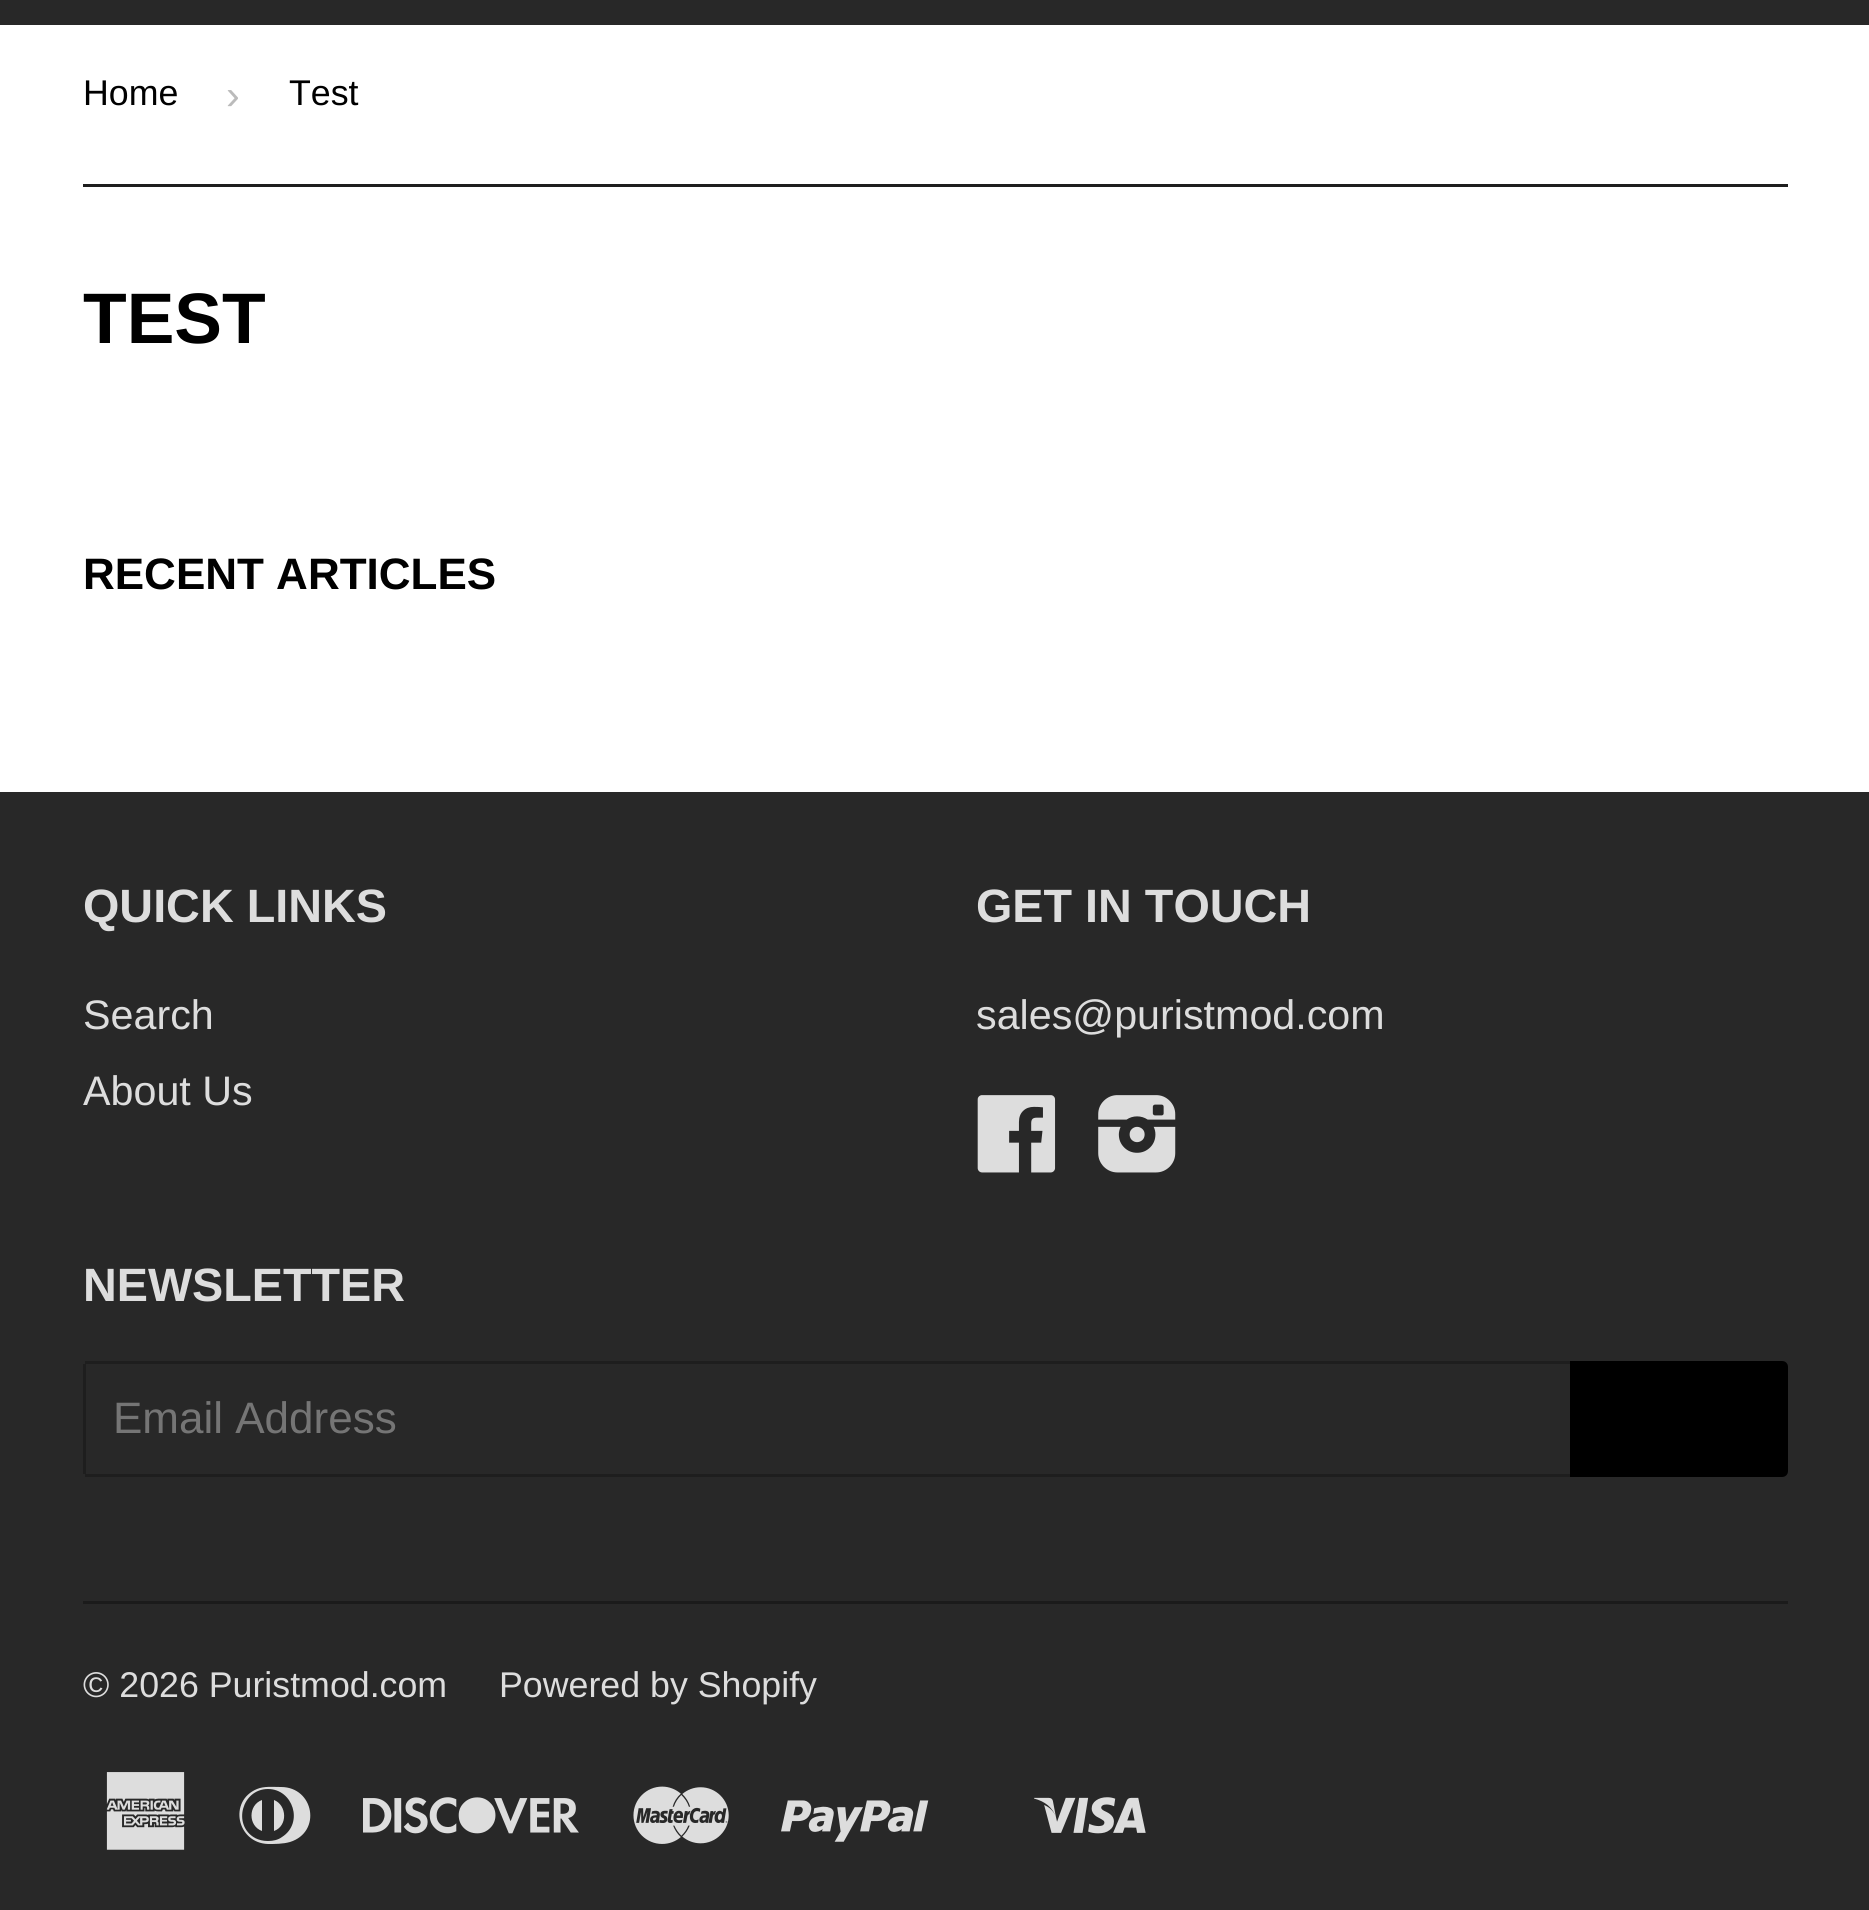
#include <cairo/cairo.h>
#include <math.h>
#include <stddef.h>

typedef struct { double x, y, w, h; unsigned color; } box_t;
static cairo_t *cr;

static void rgb(unsigned color)
{
	cairo_set_source_rgb(cr, (color >> 16) / 255.0, (color >> 8 & 255) / 255.0, (color & 255) / 255.0);
}

static void image(const char *path, double x, double y, double w, double h)
{
	cairo_surface_t *image = cairo_image_surface_create_from_png(path);
	cairo_save(cr);
	cairo_set_source_surface(cr, image, x, y);
	cairo_rectangle(cr, x, y, w, h);
	cairo_fill(cr);
	cairo_restore(cr);
	cairo_surface_destroy(image);
}

int main(void) {
	cairo_surface_t *surface = cairo_image_surface_create(CAIRO_FORMAT_RGB24, 1869, 1910);
	cr = cairo_create(surface);
	cairo_font_options_t *options = cairo_font_options_create();
	cairo_font_options_set_hint_metrics(options, CAIRO_HINT_METRICS_OFF);
	cairo_font_options_set_hint_style(options, CAIRO_HINT_STYLE_NONE);
	cairo_set_font_options(cr, options);
	cairo_set_miter_limit(cr, 4);
	rgb(0xffffff);
	cairo_paint(cr);
	{
		static const box_t items[] = {
			{0, 0, 1869, 25, 0x282828},
			{83, 184, 1705, 3, 0x1e1e1e},
			{0, 792, 1869, 1118, 0x282828},
		};
		for (size_t i = 0; i < sizeof items / sizeof *items; i++) {
			rgb(items[i].color);
			cairo_rectangle(cr, items[i].x, items[i].y, items[i].w, items[i].h);
			cairo_fill(cr);
		}
	}
	image("img/1.png", 977, 1095, 79, 78);
	image("img/2.png", 1098, 1095, 78, 78);
	{
		static const box_t items[] = {
			{85, 1361, 1485, 3, 0x1e1e1e},
			{85, 1474, 1485, 3, 0x1e1e1e},
			{83, 1364, 3, 110, 0x1e1e1e},
		};
		for (size_t i = 0; i < sizeof items / sizeof *items; i++) {
			rgb(items[i].color);
			cairo_rectangle(cr, items[i].x, items[i].y, items[i].w, items[i].h);
			cairo_fill(cr);
		}
	}
	rgb(0x000000);
	cairo_new_path(cr);
	cairo_move_to(cr, 1570, 1361);
	cairo_line_to(cr, 1782, 1361);
	cairo_curve_to(cr, 1785.5, 1361, 1788, 1363.5, 1788, 1367);
	cairo_line_to(cr, 1788, 1471);
	cairo_curve_to(cr, 1788, 1474.5, 1785.5, 1477, 1782, 1477);
	cairo_line_to(cr, 1570, 1477);
	cairo_close_path(cr);
	cairo_fill(cr);
	rgb(0x1b1b1b);
	cairo_rectangle(cr, 83, 1601, 1705, 3);
	cairo_fill(cr);
	image("img/3.png", 106, 1772, 79, 78);
	rgb(0xdddddd);
	cairo_new_path(cr);
	cairo_move_to(cr, 281, 1787);
	cairo_curve_to(cr, 314, 1787, 322, 1832, 290, 1842);
	cairo_curve_to(cr, 283, 1844, 275, 1844, 268, 1844);
	cairo_curve_to(cr, 237, 1843, 228, 1801, 257, 1789);
	cairo_curve_to(cr, 264, 1786, 273, 1787, 281, 1787);
	cairo_close_path(cr);
	cairo_move_to(cr, 268, 1841);
	cairo_curve_to(cr, 273, 1841, 278, 1840, 282, 1837);
	cairo_curve_to(cr, 304, 1823, 293, 1789, 268, 1789);
	cairo_curve_to(cr, 242, 1789, 232, 1825, 255, 1838);
	cairo_curve_to(cr, 259, 1840, 263, 1841, 268, 1841);
	cairo_close_path(cr);
	cairo_move_to(cr, 262, 1831);
	cairo_curve_to(cr, 248, 1826, 248, 1805, 262, 1800);
	cairo_close_path(cr);
	cairo_move_to(cr, 274, 1800);
	cairo_curve_to(cr, 287, 1805, 288, 1826, 274, 1831);
	cairo_close_path(cr);
	cairo_fill(cr);
	image("img/4.png", 363, 1797, 216, 37);
	image("img/5.png", 633, 1786, 96, 58);
	image("img/6.png", 781, 1800, 148, 42);
	image("img/7.png", 1034, 1797, 112, 37);
	cairo_select_font_face(cr, "Liberation Sans", CAIRO_FONT_SLANT_NORMAL, CAIRO_FONT_WEIGHT_NORMAL);
	cairo_set_font_size(cr, 35.75);
	rgb(0x000000);
	cairo_move_to(cr, 83, 105);
	cairo_show_text(cr, "Home");
	cairo_set_font_size(cr, 41.25);
	rgb(0xbbbbbb);
	cairo_move_to(cr, 226, 109);
	cairo_show_text(cr, "›");
	cairo_set_font_size(cr, 35.75);
	rgb(0x000000);
	cairo_move_to(cr, 289, 105);
	cairo_show_text(cr, "Test");
	cairo_select_font_face(cr, "Liberation Sans", CAIRO_FONT_SLANT_NORMAL, CAIRO_FONT_WEIGHT_BOLD);
	cairo_set_font_size(cr, 71.5);
	cairo_move_to(cr, 83, 343);
	cairo_show_text(cr, "TEST");
	cairo_set_font_size(cr, 44);
	cairo_move_to(cr, 83, 589);
	cairo_show_text(cr, "RECENT ARTICLES");
	cairo_set_font_size(cr, 46.75);
	rgb(0xdddddd);
	cairo_move_to(cr, 83, 922);
	cairo_show_text(cr, "QUICK LINKS");
	cairo_select_font_face(cr, "Liberation Sans", CAIRO_FONT_SLANT_NORMAL, CAIRO_FONT_WEIGHT_NORMAL);
	cairo_set_font_size(cr, 41.25);
	cairo_move_to(cr, 83, 1029);
	cairo_show_text(cr, "Search");
	cairo_move_to(cr, 83, 1105);
	cairo_show_text(cr, "About Us");
	cairo_select_font_face(cr, "Liberation Sans", CAIRO_FONT_SLANT_NORMAL, CAIRO_FONT_WEIGHT_BOLD);
	cairo_set_font_size(cr, 46.75);
	cairo_move_to(cr, 976, 922);
	cairo_show_text(cr, "GET IN TOUCH");
	cairo_select_font_face(cr, "Liberation Sans", CAIRO_FONT_SLANT_NORMAL, CAIRO_FONT_WEIGHT_NORMAL);
	cairo_set_font_size(cr, 41.25);
	cairo_move_to(cr, 976, 1029);
	cairo_show_text(cr, "sales@puristmod.com");
	cairo_select_font_face(cr, "Liberation Sans", CAIRO_FONT_SLANT_NORMAL, CAIRO_FONT_WEIGHT_BOLD);
	cairo_set_font_size(cr, 46.75);
	cairo_move_to(cr, 83, 1301);
	cairo_show_text(cr, "NEWSLETTER");
	cairo_select_font_face(cr, "Liberation Sans", CAIRO_FONT_SLANT_NORMAL, CAIRO_FONT_WEIGHT_NORMAL);
	cairo_set_font_size(cr, 44);
	rgb(0x757575);
	cairo_move_to(cr, 113, 1433);
	cairo_show_text(cr, "Email Address");
	cairo_set_font_size(cr, 35.75);
	rgb(0xdddddd);
	cairo_move_to(cr, 83, 1697);
	cairo_show_text(cr, "© 2026 Puristmod.com");
	cairo_move_to(cr, 499, 1697);
	cairo_show_text(cr, "Powered by Shopify");
	cairo_surface_write_to_png(surface, "page.png");
	cairo_font_options_destroy(options);
	cairo_destroy(cr);
	cairo_surface_destroy(surface);
	return 0;
}
